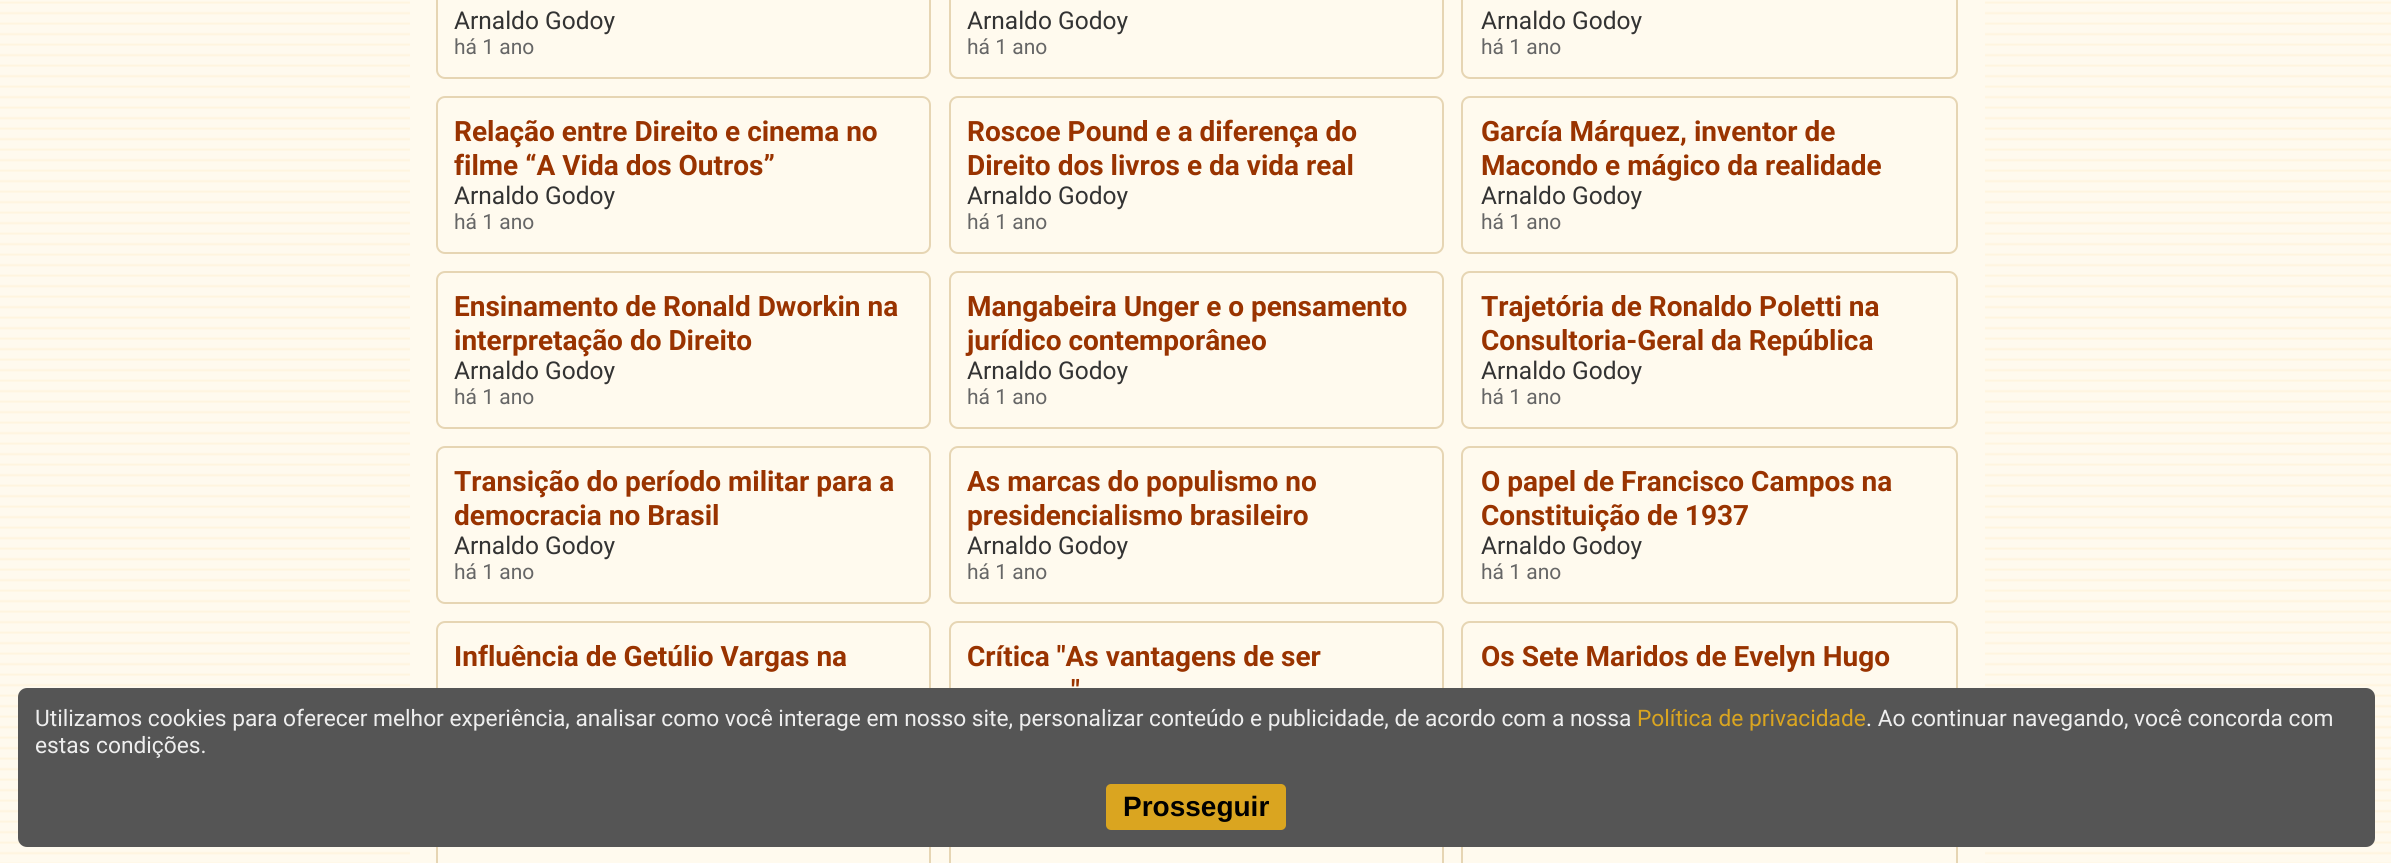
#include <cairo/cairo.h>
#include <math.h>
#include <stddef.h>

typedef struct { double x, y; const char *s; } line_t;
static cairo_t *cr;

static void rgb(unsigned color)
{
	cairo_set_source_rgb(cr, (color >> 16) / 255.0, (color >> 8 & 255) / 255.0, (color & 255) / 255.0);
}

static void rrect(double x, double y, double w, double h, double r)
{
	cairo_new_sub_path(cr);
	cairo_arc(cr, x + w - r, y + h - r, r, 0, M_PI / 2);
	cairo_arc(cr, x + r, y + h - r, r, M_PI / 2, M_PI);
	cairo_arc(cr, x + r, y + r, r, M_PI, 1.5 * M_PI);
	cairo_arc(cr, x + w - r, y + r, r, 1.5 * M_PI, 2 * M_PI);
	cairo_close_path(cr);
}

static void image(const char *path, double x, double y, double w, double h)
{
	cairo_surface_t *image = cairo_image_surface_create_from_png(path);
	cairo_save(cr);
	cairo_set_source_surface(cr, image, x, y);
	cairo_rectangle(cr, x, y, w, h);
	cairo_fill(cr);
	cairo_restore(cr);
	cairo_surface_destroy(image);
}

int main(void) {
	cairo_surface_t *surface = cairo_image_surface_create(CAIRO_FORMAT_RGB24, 2391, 863);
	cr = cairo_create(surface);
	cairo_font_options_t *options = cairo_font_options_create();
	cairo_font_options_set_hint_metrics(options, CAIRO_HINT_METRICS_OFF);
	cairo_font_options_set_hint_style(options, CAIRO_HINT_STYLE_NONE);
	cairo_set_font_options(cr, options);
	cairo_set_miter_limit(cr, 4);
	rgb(0xfffaee);
	cairo_paint(cr);
	image("img/1.png", 0, 1, 2391, 862);
	rgb(0xfffaee);
	cairo_rectangle(cr, 410, 1, 1575, 862);
	cairo_fill(cr);
	rrect(437, -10, 493, 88, 8);
	rgb(0xe6d5b3);
	cairo_stroke(cr);
	rrect(950, -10, 493, 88, 8);
	cairo_stroke(cr);
	rrect(1462, -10, 495, 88, 8);
	cairo_stroke(cr);
	rrect(437, 97, 493, 156, 8);
	cairo_stroke(cr);
	rrect(950, 97, 493, 156, 8);
	cairo_stroke(cr);
	rrect(1462, 97, 495, 156, 8);
	cairo_stroke(cr);
	rrect(437, 272, 493, 156, 8);
	cairo_stroke(cr);
	rrect(950, 272, 493, 156, 8);
	cairo_stroke(cr);
	rrect(1462, 272, 495, 156, 8);
	cairo_stroke(cr);
	rrect(437, 447, 493, 156, 8);
	cairo_stroke(cr);
	rrect(950, 447, 493, 156, 8);
	cairo_stroke(cr);
	rrect(1462, 447, 495, 156, 8);
	cairo_stroke(cr);
	rrect(437, 622, 493, 156, 8);
	cairo_stroke(cr);
	rrect(950, 622, 493, 156, 8);
	cairo_stroke(cr);
	rrect(1462, 622, 495, 156, 8);
	cairo_stroke(cr);
	cairo_rectangle(cr, 437, 797, 493, 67);
	cairo_stroke(cr);
	cairo_rectangle(cr, 950, 797, 493, 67);
	cairo_stroke(cr);
	cairo_rectangle(cr, 1462, 797, 495, 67);
	cairo_stroke(cr);
	rgb(0x555555);
	rrect(18, 688, 2357, 159, 9);
	cairo_fill(cr);
	rgb(0xdaa520);
	rrect(1106, 784, 180, 46, 5);
	cairo_fill(cr);
	cairo_select_font_face(cr, "Roboto", CAIRO_FONT_SLANT_NORMAL, CAIRO_FONT_WEIGHT_NORMAL);
	cairo_set_font_size(cr, 24.5);
	rgb(0x333333);
	cairo_move_to(cr, 454, 29);
	cairo_show_text(cr, "Arnaldo Godoy");
	cairo_set_font_size(cr, 21);
	rgb(0x666666);
	cairo_move_to(cr, 454, 54);
	cairo_show_text(cr, "há 1 ano");
	cairo_set_font_size(cr, 24.5);
	rgb(0x333333);
	cairo_move_to(cr, 967, 29);
	cairo_show_text(cr, "Arnaldo Godoy");
	cairo_set_font_size(cr, 21);
	rgb(0x666666);
	cairo_move_to(cr, 967, 54);
	cairo_show_text(cr, "há 1 ano");
	cairo_set_font_size(cr, 24.5);
	rgb(0x333333);
	cairo_move_to(cr, 1481, 29);
	cairo_show_text(cr, "Arnaldo Godoy");
	cairo_set_font_size(cr, 21);
	rgb(0x666666);
	cairo_move_to(cr, 1481, 54);
	cairo_show_text(cr, "há 1 ano");
	cairo_select_font_face(cr, "Roboto", CAIRO_FONT_SLANT_NORMAL, CAIRO_FONT_WEIGHT_BOLD);
	cairo_set_font_size(cr, 28);
	rgb(0x993300);
	cairo_move_to(cr, 454, 141);
	cairo_show_text(cr, "Relação entre Direito e cinema no");
	cairo_move_to(cr, 454, 175);
	cairo_show_text(cr, "filme “A Vida dos Outros”");
	cairo_select_font_face(cr, "Roboto", CAIRO_FONT_SLANT_NORMAL, CAIRO_FONT_WEIGHT_NORMAL);
	cairo_set_font_size(cr, 24.5);
	rgb(0x333333);
	cairo_move_to(cr, 454, 204);
	cairo_show_text(cr, "Arnaldo Godoy");
	cairo_set_font_size(cr, 21);
	rgb(0x666666);
	cairo_move_to(cr, 454, 229);
	cairo_show_text(cr, "há 1 ano");
	cairo_select_font_face(cr, "Roboto", CAIRO_FONT_SLANT_NORMAL, CAIRO_FONT_WEIGHT_BOLD);
	cairo_set_font_size(cr, 28);
	rgb(0x993300);
	cairo_move_to(cr, 967, 141);
	cairo_show_text(cr, "Roscoe Pound e a diferença do");
	cairo_move_to(cr, 967, 175);
	cairo_show_text(cr, "Direito dos livros e da vida real");
	cairo_select_font_face(cr, "Roboto", CAIRO_FONT_SLANT_NORMAL, CAIRO_FONT_WEIGHT_NORMAL);
	cairo_set_font_size(cr, 24.5);
	rgb(0x333333);
	cairo_move_to(cr, 967, 204);
	cairo_show_text(cr, "Arnaldo Godoy");
	cairo_set_font_size(cr, 21);
	rgb(0x666666);
	cairo_move_to(cr, 967, 229);
	cairo_show_text(cr, "há 1 ano");
	cairo_select_font_face(cr, "Roboto", CAIRO_FONT_SLANT_NORMAL, CAIRO_FONT_WEIGHT_BOLD);
	cairo_set_font_size(cr, 28);
	rgb(0x993300);
	cairo_move_to(cr, 1481, 141);
	cairo_show_text(cr, "García Márquez, inventor de");
	cairo_move_to(cr, 1481, 175);
	cairo_show_text(cr, "Macondo e mágico da realidade");
	cairo_select_font_face(cr, "Roboto", CAIRO_FONT_SLANT_NORMAL, CAIRO_FONT_WEIGHT_NORMAL);
	cairo_set_font_size(cr, 24.5);
	rgb(0x333333);
	cairo_move_to(cr, 1481, 204);
	cairo_show_text(cr, "Arnaldo Godoy");
	cairo_set_font_size(cr, 21);
	rgb(0x666666);
	cairo_move_to(cr, 1481, 229);
	cairo_show_text(cr, "há 1 ano");
	cairo_select_font_face(cr, "Roboto", CAIRO_FONT_SLANT_NORMAL, CAIRO_FONT_WEIGHT_BOLD);
	cairo_set_font_size(cr, 28);
	rgb(0x993300);
	cairo_move_to(cr, 454, 316);
	cairo_show_text(cr, "Ensinamento de Ronald Dworkin na");
	cairo_move_to(cr, 454, 350);
	cairo_show_text(cr, "interpretação do Direito");
	cairo_select_font_face(cr, "Roboto", CAIRO_FONT_SLANT_NORMAL, CAIRO_FONT_WEIGHT_NORMAL);
	cairo_set_font_size(cr, 24.5);
	rgb(0x333333);
	cairo_move_to(cr, 454, 379);
	cairo_show_text(cr, "Arnaldo Godoy");
	cairo_set_font_size(cr, 21);
	rgb(0x666666);
	cairo_move_to(cr, 454, 404);
	cairo_show_text(cr, "há 1 ano");
	cairo_select_font_face(cr, "Roboto", CAIRO_FONT_SLANT_NORMAL, CAIRO_FONT_WEIGHT_BOLD);
	cairo_set_font_size(cr, 28);
	rgb(0x993300);
	cairo_move_to(cr, 967, 316);
	cairo_show_text(cr, "Mangabeira Unger e o pensamento");
	cairo_move_to(cr, 967, 350);
	cairo_show_text(cr, "jurídico contemporâneo");
	cairo_select_font_face(cr, "Roboto", CAIRO_FONT_SLANT_NORMAL, CAIRO_FONT_WEIGHT_NORMAL);
	cairo_set_font_size(cr, 24.5);
	rgb(0x333333);
	cairo_move_to(cr, 967, 379);
	cairo_show_text(cr, "Arnaldo Godoy");
	cairo_set_font_size(cr, 21);
	rgb(0x666666);
	cairo_move_to(cr, 967, 404);
	cairo_show_text(cr, "há 1 ano");
	cairo_select_font_face(cr, "Roboto", CAIRO_FONT_SLANT_NORMAL, CAIRO_FONT_WEIGHT_BOLD);
	cairo_set_font_size(cr, 28);
	rgb(0x993300);
	cairo_move_to(cr, 1481, 316);
	cairo_show_text(cr, "Trajetória de Ronaldo Poletti na");
	cairo_move_to(cr, 1481, 350);
	cairo_show_text(cr, "Consultoria-Geral da República");
	cairo_select_font_face(cr, "Roboto", CAIRO_FONT_SLANT_NORMAL, CAIRO_FONT_WEIGHT_NORMAL);
	cairo_set_font_size(cr, 24.5);
	rgb(0x333333);
	cairo_move_to(cr, 1481, 379);
	cairo_show_text(cr, "Arnaldo Godoy");
	cairo_set_font_size(cr, 21);
	rgb(0x666666);
	cairo_move_to(cr, 1481, 404);
	cairo_show_text(cr, "há 1 ano");
	cairo_select_font_face(cr, "Roboto", CAIRO_FONT_SLANT_NORMAL, CAIRO_FONT_WEIGHT_BOLD);
	cairo_set_font_size(cr, 28);
	rgb(0x993300);
	cairo_move_to(cr, 454, 491);
	cairo_show_text(cr, "Transição do período militar para a");
	cairo_move_to(cr, 454, 525);
	cairo_show_text(cr, "democracia no Brasil");
	cairo_select_font_face(cr, "Roboto", CAIRO_FONT_SLANT_NORMAL, CAIRO_FONT_WEIGHT_NORMAL);
	cairo_set_font_size(cr, 24.5);
	rgb(0x333333);
	cairo_move_to(cr, 454, 554);
	cairo_show_text(cr, "Arnaldo Godoy");
	cairo_set_font_size(cr, 21);
	rgb(0x666666);
	cairo_move_to(cr, 454, 579);
	cairo_show_text(cr, "há 1 ano");
	cairo_select_font_face(cr, "Roboto", CAIRO_FONT_SLANT_NORMAL, CAIRO_FONT_WEIGHT_BOLD);
	cairo_set_font_size(cr, 28);
	rgb(0x993300);
	cairo_move_to(cr, 967, 491);
	cairo_show_text(cr, "As marcas do populismo no");
	cairo_move_to(cr, 967, 525);
	cairo_show_text(cr, "presidencialismo brasileiro");
	cairo_select_font_face(cr, "Roboto", CAIRO_FONT_SLANT_NORMAL, CAIRO_FONT_WEIGHT_NORMAL);
	cairo_set_font_size(cr, 24.5);
	rgb(0x333333);
	cairo_move_to(cr, 967, 554);
	cairo_show_text(cr, "Arnaldo Godoy");
	cairo_set_font_size(cr, 21);
	rgb(0x666666);
	cairo_move_to(cr, 967, 579);
	cairo_show_text(cr, "há 1 ano");
	cairo_select_font_face(cr, "Roboto", CAIRO_FONT_SLANT_NORMAL, CAIRO_FONT_WEIGHT_BOLD);
	cairo_set_font_size(cr, 28);
	rgb(0x993300);
	cairo_move_to(cr, 1481, 491);
	cairo_show_text(cr, "O papel de Francisco Campos na");
	cairo_move_to(cr, 1481, 525);
	cairo_show_text(cr, "Constituição de 1937");
	cairo_select_font_face(cr, "Roboto", CAIRO_FONT_SLANT_NORMAL, CAIRO_FONT_WEIGHT_NORMAL);
	cairo_set_font_size(cr, 24.5);
	rgb(0x333333);
	cairo_move_to(cr, 1481, 554);
	cairo_show_text(cr, "Arnaldo Godoy");
	cairo_set_font_size(cr, 21);
	rgb(0x666666);
	cairo_move_to(cr, 1481, 579);
	cairo_show_text(cr, "há 1 ano");
	cairo_select_font_face(cr, "Roboto", CAIRO_FONT_SLANT_NORMAL, CAIRO_FONT_WEIGHT_BOLD);
	cairo_set_font_size(cr, 28);
	rgb(0x993300);
	{
		static const line_t items[] = {
			{454, 666, "Influência de Getúlio Vargas na"},
			{967, 666, "Crítica \"As vantagens de ser"},
			{1071, 700, "\""},
			{1481, 666, "Os Sete Maridos de Evelyn Hugo"},
		};
		for (size_t i = 0; i < sizeof items / sizeof *items; i++) {
			cairo_move_to(cr, items[i].x, items[i].y);
			cairo_show_text(cr, items[i].s);
		}
	}
	cairo_select_font_face(cr, "Roboto", CAIRO_FONT_SLANT_NORMAL, CAIRO_FONT_WEIGHT_NORMAL);
	cairo_set_font_size(cr, 22.75);
	rgb(0xeeeeee);
	cairo_move_to(cr, 35, 726);
	cairo_show_text(cr, "Utilizamos cookies para oferecer melhor experiência, analisar como você interage em nosso site, personalizar conteúdo e publicidade, de acordo com a nossa");
	rgb(0xdaa520);
	cairo_move_to(cr, 1637, 726);
	cairo_show_text(cr, "Política de privacidade");
	rgb(0xeeeeee);
	cairo_move_to(cr, 1866, 726);
	cairo_show_text(cr, ". Ao continuar navegando, você concorda com");
	cairo_move_to(cr, 35, 753);
	cairo_show_text(cr, "estas condições.");
	cairo_select_font_face(cr, "Liberation Sans", CAIRO_FONT_SLANT_NORMAL, CAIRO_FONT_WEIGHT_BOLD);
	cairo_set_font_size(cr, 28);
	rgb(0x000000);
	cairo_move_to(cr, 1123, 816);
	cairo_show_text(cr, "Prosseguir");
	cairo_surface_write_to_png(surface, "page.png");
	cairo_font_options_destroy(options);
	cairo_destroy(cr);
	cairo_surface_destroy(surface);
	return 0;
}
